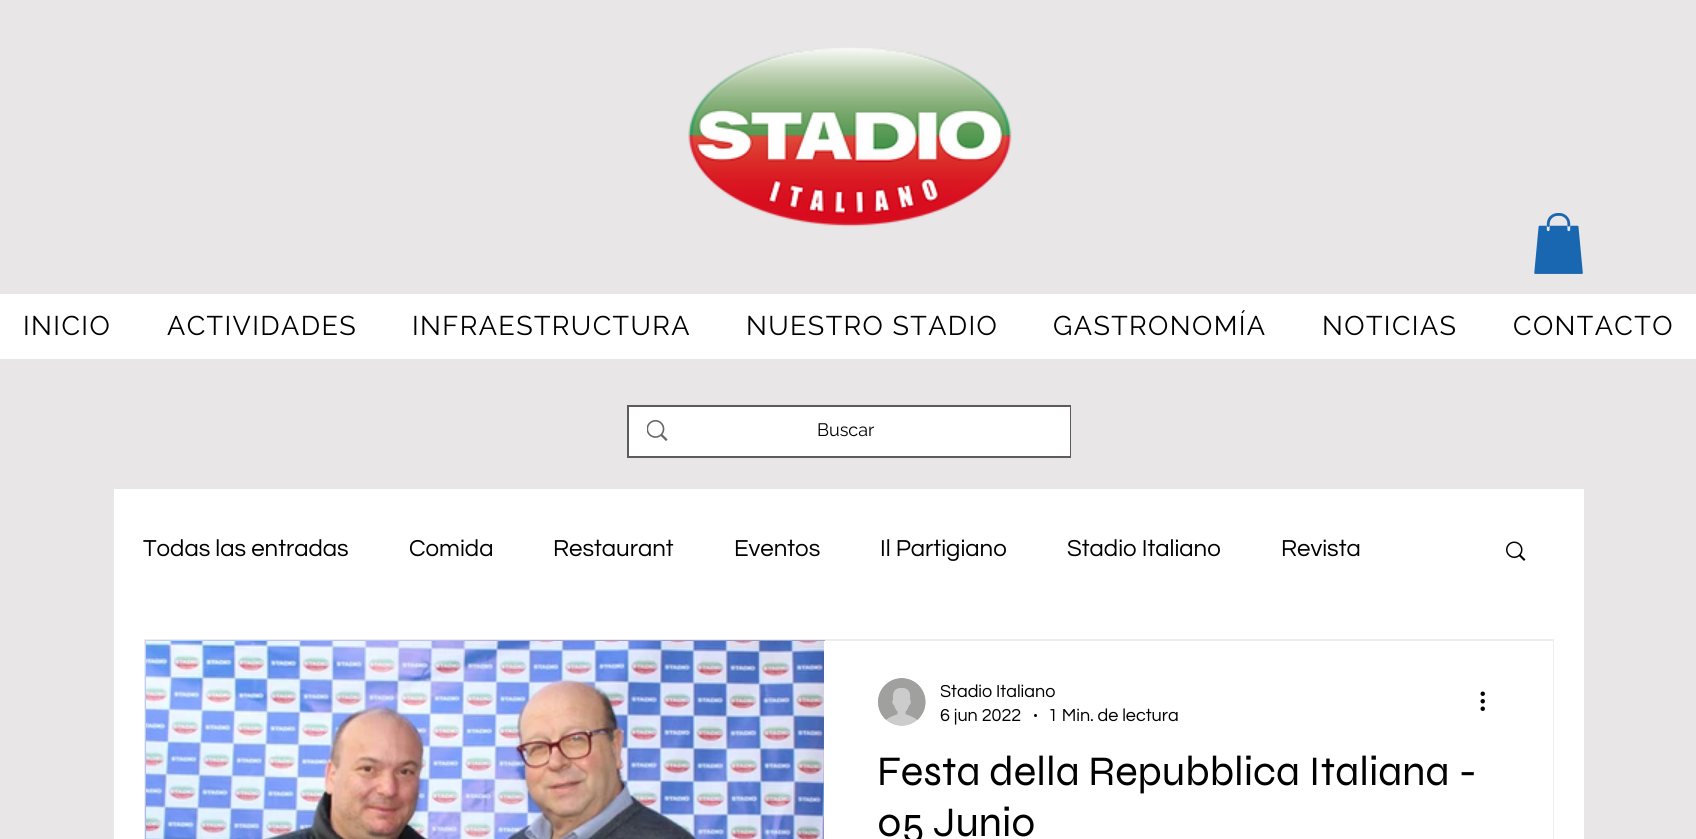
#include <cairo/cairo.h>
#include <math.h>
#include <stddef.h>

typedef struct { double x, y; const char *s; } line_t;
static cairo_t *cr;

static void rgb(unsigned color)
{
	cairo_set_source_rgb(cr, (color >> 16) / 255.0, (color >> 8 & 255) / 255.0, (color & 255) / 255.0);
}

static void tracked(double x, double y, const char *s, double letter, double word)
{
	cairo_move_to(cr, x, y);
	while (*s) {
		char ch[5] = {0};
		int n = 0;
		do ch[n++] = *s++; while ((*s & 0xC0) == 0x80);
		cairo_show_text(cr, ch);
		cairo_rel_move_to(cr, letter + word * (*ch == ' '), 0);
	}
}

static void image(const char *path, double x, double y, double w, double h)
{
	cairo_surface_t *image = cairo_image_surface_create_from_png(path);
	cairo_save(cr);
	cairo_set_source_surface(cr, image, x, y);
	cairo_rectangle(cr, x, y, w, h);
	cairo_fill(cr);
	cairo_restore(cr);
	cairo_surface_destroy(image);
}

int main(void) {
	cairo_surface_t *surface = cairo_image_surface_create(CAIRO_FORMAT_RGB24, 1696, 839);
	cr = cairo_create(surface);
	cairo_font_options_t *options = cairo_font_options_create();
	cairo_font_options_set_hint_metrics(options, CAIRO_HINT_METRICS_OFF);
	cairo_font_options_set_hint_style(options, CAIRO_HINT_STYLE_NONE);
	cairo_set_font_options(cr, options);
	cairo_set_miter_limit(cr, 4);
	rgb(0xe8e6e6);
	cairo_paint(cr);
	image("img/1.png", 688, 47, 324, 180);
	image("img/2.png", 1534, 213, 49, 61);
	rgb(0xffffff);
	cairo_rectangle(cr, 0, 294, 1696, 65);
	cairo_fill(cr);
	cairo_rectangle(cr, 628, 406, 442, 51);
	rgb(0x5d5c5c);
	cairo_stroke(cr);
	rgb(0xffffff);
	cairo_rectangle(cr, 629, 407, 441, 49);
	cairo_fill(cr);
	image("img/3.png", 647, 420, 21, 21);
	cairo_rectangle(cr, 114, 489, 1470, 350);
	cairo_fill(cr);
	image("img/4.png", 1506, 541, 20, 20);
	cairo_rectangle(cr, 145, 640, 1408, 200);
	rgb(0xeeecec);
	cairo_stroke(cr);
	image("img/5.png", 145, 640, 680, 199);
	image("img/6.png", 146, 641, 678, 198);
	rgb(0xffffff);
	cairo_rectangle(cr, 824, 641, 729, 198);
	cairo_fill(cr);
	image("img/7.png", 878, 678, 48, 48);
	rgb(0x000000);
	cairo_arc(cr, 1035.5, 715.5, 1.5, 0, 2 * M_PI);
	cairo_fill(cr);
	image("img/8.png", 1480, 691, 5, 20);
	cairo_select_font_face(cr, "Raleway", CAIRO_FONT_SLANT_NORMAL, CAIRO_FONT_WEIGHT_NORMAL);
	cairo_set_font_size(cr, 27);
	{
		static const line_t items[] = {
			{23, 335, "INICIO"},
			{167, 335, "ACTIVIDADES"},
			{412, 335, "INFRAESTRUCTURA"},
			{746, 335, "NUESTRO STADIO"},
			{1053, 335, "GASTRONOMÍA"},
			{1322, 335, "NOTICIAS"},
			{1513, 335, "CONTACTO"},
		};
		for (size_t i = 0; i < sizeof items / sizeof *items; i++) {
			tracked(items[i].x, items[i].y, items[i].s, 1.4, 0);
		}
	}
	cairo_set_font_size(cr, 18);
	cairo_move_to(cr, 817, 436);
	cairo_show_text(cr, "Buscar");
	cairo_select_font_face(cr, "Questrial", CAIRO_FONT_SLANT_NORMAL, CAIRO_FONT_WEIGHT_NORMAL);
	cairo_set_font_size(cr, 24);
	{
		static const line_t items[] = {
			{143, 556, "Todas las entradas"},
			{409, 556, "Comida"},
			{553, 556, "Restaurant"},
			{734, 556, "Eventos"},
			{880, 556, "Il Partigiano"},
			{1067, 556, "Stadio Italiano"},
			{1281, 556, "Revista"},
		};
		for (size_t i = 0; i < sizeof items / sizeof *items; i++) {
			cairo_move_to(cr, items[i].x, items[i].y);
			cairo_show_text(cr, items[i].s);
		}
	}
	cairo_save(cr);
	cairo_rectangle(cr, 941, 683, 114, 19);
	cairo_clip(cr);
	cairo_set_font_size(cr, 18);
	cairo_move_to(cr, 940, 697);
	cairo_show_text(cr, "Stadio Italiano");
	cairo_restore(cr);
	cairo_set_font_size(cr, 18);
	cairo_move_to(cr, 940, 721);
	cairo_show_text(cr, "6 jun 2022");
	cairo_move_to(cr, 1048, 721);
	cairo_show_text(cr, "1 Min. de lectura");
	cairo_select_font_face(cr, "Syne", CAIRO_FONT_SLANT_NORMAL, CAIRO_FONT_WEIGHT_NORMAL);
	cairo_set_font_size(cr, 42);
	cairo_move_to(cr, 877, 785);
	cairo_show_text(cr, "Festa della Repubblica Italiana -");
	cairo_move_to(cr, 877, 836);
	cairo_show_text(cr, "05 Junio");
	cairo_surface_write_to_png(surface, "page.png");
	cairo_font_options_destroy(options);
	cairo_destroy(cr);
	cairo_surface_destroy(surface);
	return 0;
}
